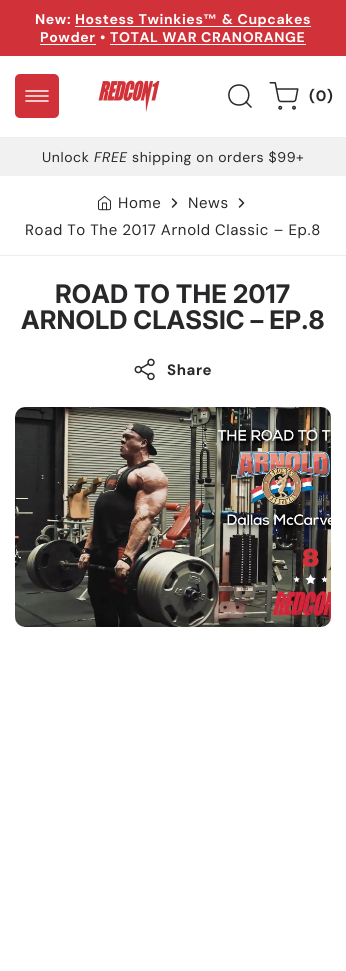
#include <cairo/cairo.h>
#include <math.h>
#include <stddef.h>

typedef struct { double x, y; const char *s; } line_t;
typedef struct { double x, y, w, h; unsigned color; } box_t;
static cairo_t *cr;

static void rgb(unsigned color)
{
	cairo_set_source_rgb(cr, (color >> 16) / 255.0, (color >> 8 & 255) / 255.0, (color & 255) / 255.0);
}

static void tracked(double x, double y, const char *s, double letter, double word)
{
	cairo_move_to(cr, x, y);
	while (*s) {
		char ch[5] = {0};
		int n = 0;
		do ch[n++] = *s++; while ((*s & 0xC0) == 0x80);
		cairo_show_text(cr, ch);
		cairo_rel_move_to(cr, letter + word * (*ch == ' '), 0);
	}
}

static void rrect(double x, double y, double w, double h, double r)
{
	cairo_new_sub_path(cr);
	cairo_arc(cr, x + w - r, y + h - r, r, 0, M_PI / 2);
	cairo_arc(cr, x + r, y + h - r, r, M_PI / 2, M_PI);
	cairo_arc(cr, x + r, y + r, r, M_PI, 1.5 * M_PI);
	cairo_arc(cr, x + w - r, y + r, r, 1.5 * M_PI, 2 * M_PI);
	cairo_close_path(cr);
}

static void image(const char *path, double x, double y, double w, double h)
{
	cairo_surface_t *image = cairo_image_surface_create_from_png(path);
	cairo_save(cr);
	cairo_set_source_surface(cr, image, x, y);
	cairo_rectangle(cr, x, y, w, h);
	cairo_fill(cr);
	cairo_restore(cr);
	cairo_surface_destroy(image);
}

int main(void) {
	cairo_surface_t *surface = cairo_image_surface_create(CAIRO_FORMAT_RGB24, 346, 971);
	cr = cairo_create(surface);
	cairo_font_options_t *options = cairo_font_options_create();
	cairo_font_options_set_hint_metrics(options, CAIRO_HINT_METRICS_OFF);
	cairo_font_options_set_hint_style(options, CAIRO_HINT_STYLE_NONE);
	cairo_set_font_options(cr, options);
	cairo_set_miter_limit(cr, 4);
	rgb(0xffffff);
	cairo_paint(cr);
	{
		static const box_t items[] = {
			{0, 0, 346, 56, 0xd13239},
			{75, 26, 236, 1, 0xffffff},
			{40, 44, 56, 1, 0xffffff},
			{110, 44, 196, 1, 0xffffff},
			{0, 137, 346, 1, 0xeeeeee},
		};
		for (size_t i = 0; i < sizeof items / sizeof *items; i++) {
			rgb(items[i].color);
			cairo_rectangle(cr, items[i].x, items[i].y, items[i].w, items[i].h);
			cairo_fill(cr);
		}
	}
	rgb(0xd13239);
	rrect(15, 74, 44, 44, 5);
	cairo_fill(cr);
	rrect(15.5, 74.5, 43, 43, 4.5);
	cairo_set_source_rgba(cr, 0.82, 0.196, 0.224, 0.08);
	cairo_set_line_width(cr, 1);
	cairo_stroke(cr);
	cairo_new_path(cr);
	cairo_move_to(cr, 48, 96);
	cairo_line_to(cr, 26, 96);
	cairo_move_to(cr, 48, 91);
	cairo_line_to(cr, 26, 91);
	cairo_move_to(cr, 48, 101);
	cairo_line_to(cr, 26, 101);
	rgb(0xffffff);
	cairo_set_line_width(cr, 1.5);
	cairo_set_line_cap(cr, CAIRO_LINE_CAP_ROUND);
	cairo_set_line_join(cr, CAIRO_LINE_JOIN_ROUND);
	cairo_stroke(cr);
	image("img/1.png", 98, 80, 62, 32);
	cairo_new_path(cr);
	cairo_move_to(cr, 239, 105);
	cairo_curve_to(cr, 252, 105, 252, 85, 239, 85);
	cairo_curve_to(cr, 225.5, 85, 225.5, 105, 239, 105);
	cairo_close_path(cr);
	rgb(0x28282a);
	cairo_stroke(cr);
	cairo_new_path(cr);
	cairo_move_to(cr, 251, 107);
	cairo_line_to(cr, 246, 102);
	cairo_set_line_cap(cr, CAIRO_LINE_CAP_SQUARE);
	cairo_stroke(cr);
	image("img/2.png", 269, 82, 30, 28);
	rgb(0xf1f1f1);
	cairo_rectangle(cr, 0, 138, 346, 38);
	cairo_fill(cr);
	rgb(0xeeeeee);
	cairo_rectangle(cr, 0, 255, 346, 1);
	cairo_fill(cr);
	image("img/3.png", 98, 195, 13, 16);
	cairo_new_path(cr);
	cairo_move_to(cr, 172.5, 207);
	cairo_line_to(cr, 176.5, 203);
	cairo_line_to(cr, 172.5, 199);
	rgb(0x28282a);
	cairo_set_line_cap(cr, CAIRO_LINE_CAP_ROUND);
	cairo_stroke(cr);
	cairo_new_path(cr);
	cairo_move_to(cr, 239.5, 207);
	cairo_line_to(cr, 243.5, 203);
	cairo_line_to(cr, 239.5, 199);
	cairo_stroke(cr);
	image("img/4.png", 134, 358, 21, 23);
	rgb(0xeaeaea);
	rrect(15, 407, 316, 220, 10);
	cairo_fill(cr);
	image("img/5.png", 15, 407, 316, 220);
	cairo_select_font_face(cr, "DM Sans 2", CAIRO_FONT_SLANT_NORMAL, CAIRO_FONT_WEIGHT_BOLD);
	cairo_set_font_size(cr, 14);
	rgb(0xffffff);
	tracked(35, 24, "New: Hostess Twinkies", 0.6, 0);
	cairo_select_font_face(cr, "Liberation Sans", CAIRO_FONT_SLANT_NORMAL, CAIRO_FONT_WEIGHT_BOLD);
	tracked(203, 24, "™", 0.6, 0);
	cairo_select_font_face(cr, "DM Sans 2", CAIRO_FONT_SLANT_NORMAL, CAIRO_FONT_WEIGHT_BOLD);
	{
		static const line_t items[] = {
			{222, 24, "& Cupcakes"},
			{40, 42, "Powder"},
			{100, 42, "• TOTAL WAR CRANORANGE"},
		};
		for (size_t i = 0; i < sizeof items / sizeof *items; i++) {
			tracked(items[i].x, items[i].y, items[i].s, 0.6, 0);
		}
	}
	cairo_select_font_face(cr, "DM Sans", CAIRO_FONT_SLANT_NORMAL, CAIRO_FONT_WEIGHT_BOLD);
	cairo_set_font_size(cr, 15);
	rgb(0x28282a);
	tracked(309, 101, "(0)", 0.6, 0);
	cairo_select_font_face(cr, "DM Sans", CAIRO_FONT_SLANT_NORMAL, CAIRO_FONT_WEIGHT_NORMAL);
	cairo_set_font_size(cr, 14);
	tracked(42, 162, "Unlock", 0.6, 0);
	cairo_select_font_face(cr, "DM Sans", CAIRO_FONT_SLANT_ITALIC, CAIRO_FONT_WEIGHT_NORMAL);
	tracked(94, 162, "FREE", 0.6, 0);
	cairo_select_font_face(cr, "DM Sans", CAIRO_FONT_SLANT_NORMAL, CAIRO_FONT_WEIGHT_NORMAL);
	tracked(132, 162, "shipping on orders $99+", 0.6, 0);
	cairo_select_font_face(cr, "DM Sans 2", CAIRO_FONT_SLANT_NORMAL, CAIRO_FONT_WEIGHT_NORMAL);
	cairo_set_font_size(cr, 15);
	tracked(118, 208, "Home", 0.6, 0);
	tracked(188, 208, "News", 0.6, 0);
	tracked(25, 235, "Road To The 2017 Arnold Classic – Ep.8", 0.6, -0.25);
	cairo_select_font_face(cr, "Inter", CAIRO_FONT_SLANT_NORMAL, CAIRO_FONT_WEIGHT_BOLD);
	cairo_set_font_size(cr, 25.6);
	tracked(55, 303, "ROAD TO THE 2017", 0.1, 0);
	tracked(21, 329, "ARNOLD CLASSIC – EP.8", 0.1, 0);
	cairo_select_font_face(cr, "DM Sans", CAIRO_FONT_SLANT_NORMAL, CAIRO_FONT_WEIGHT_BOLD);
	cairo_set_font_size(cr, 15);
	tracked(167, 375, "Share", 0.6, 0);
	cairo_surface_write_to_png(surface, "page.png");
	cairo_font_options_destroy(options);
	cairo_destroy(cr);
	cairo_surface_destroy(surface);
	return 0;
}
